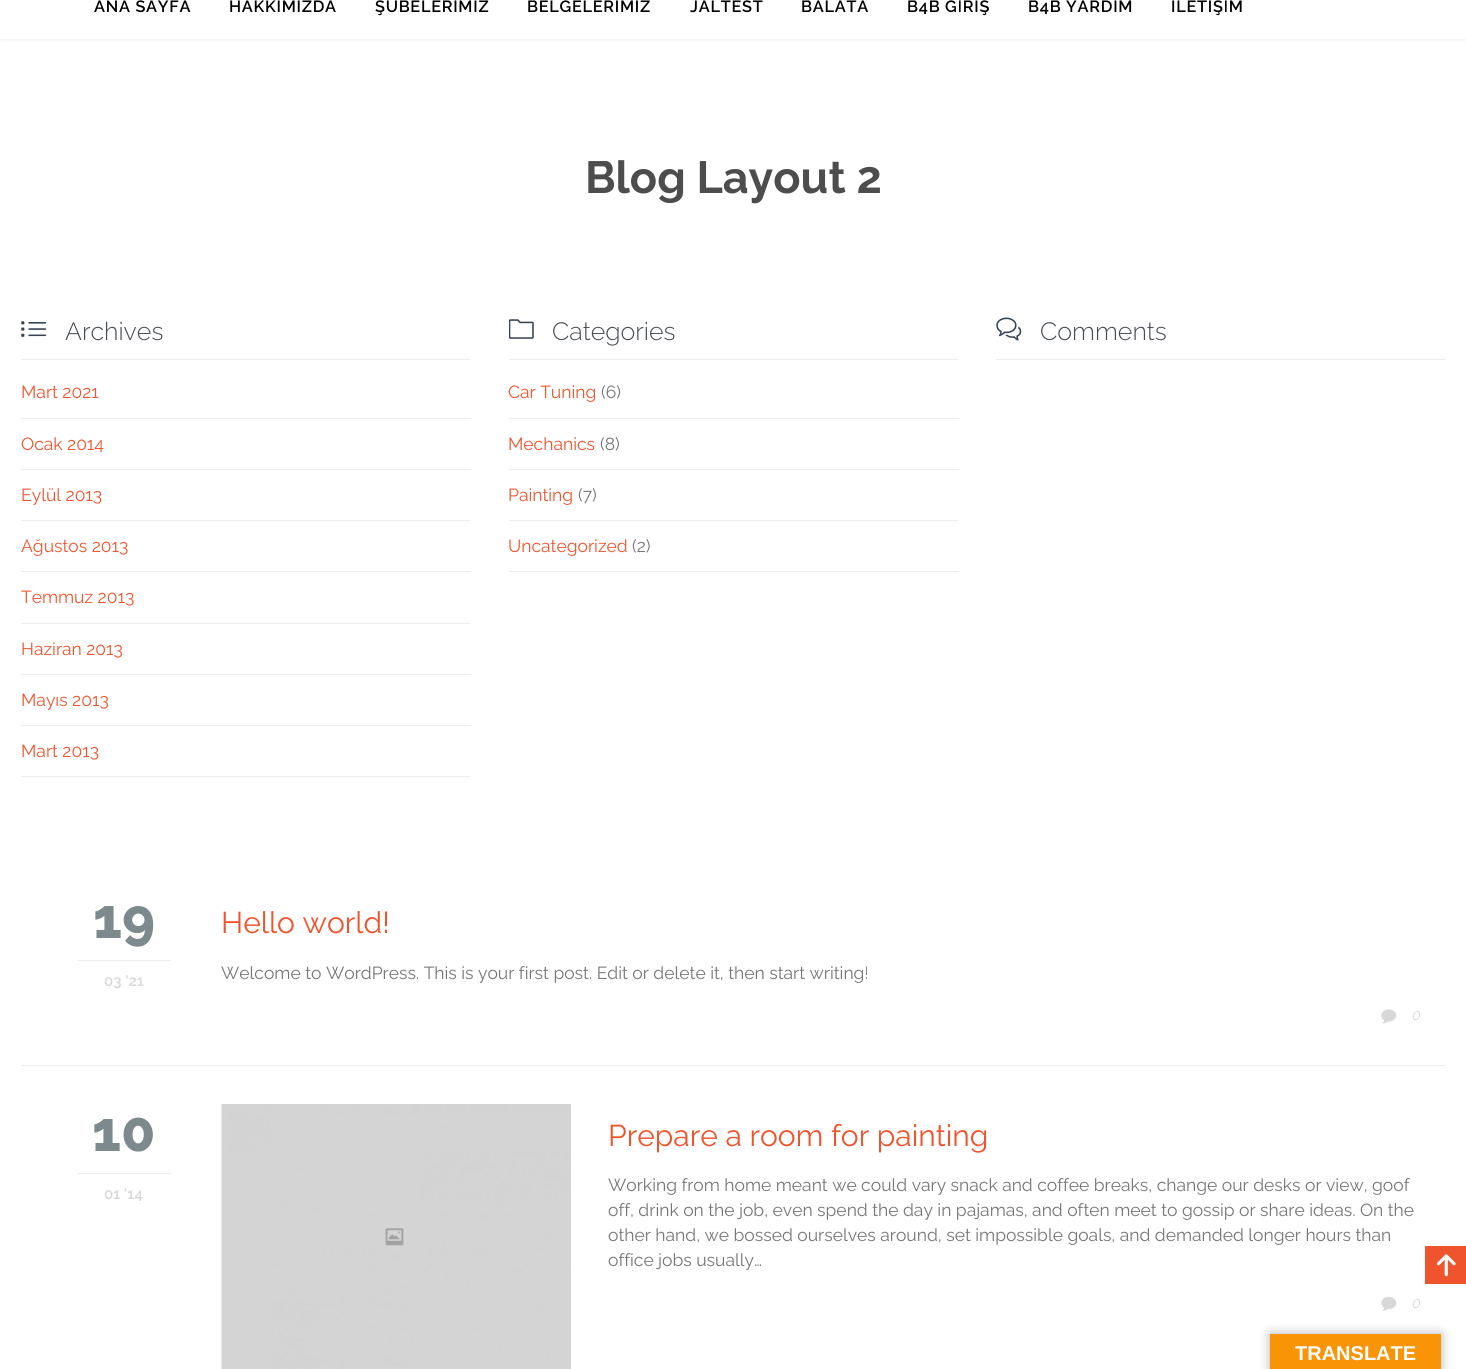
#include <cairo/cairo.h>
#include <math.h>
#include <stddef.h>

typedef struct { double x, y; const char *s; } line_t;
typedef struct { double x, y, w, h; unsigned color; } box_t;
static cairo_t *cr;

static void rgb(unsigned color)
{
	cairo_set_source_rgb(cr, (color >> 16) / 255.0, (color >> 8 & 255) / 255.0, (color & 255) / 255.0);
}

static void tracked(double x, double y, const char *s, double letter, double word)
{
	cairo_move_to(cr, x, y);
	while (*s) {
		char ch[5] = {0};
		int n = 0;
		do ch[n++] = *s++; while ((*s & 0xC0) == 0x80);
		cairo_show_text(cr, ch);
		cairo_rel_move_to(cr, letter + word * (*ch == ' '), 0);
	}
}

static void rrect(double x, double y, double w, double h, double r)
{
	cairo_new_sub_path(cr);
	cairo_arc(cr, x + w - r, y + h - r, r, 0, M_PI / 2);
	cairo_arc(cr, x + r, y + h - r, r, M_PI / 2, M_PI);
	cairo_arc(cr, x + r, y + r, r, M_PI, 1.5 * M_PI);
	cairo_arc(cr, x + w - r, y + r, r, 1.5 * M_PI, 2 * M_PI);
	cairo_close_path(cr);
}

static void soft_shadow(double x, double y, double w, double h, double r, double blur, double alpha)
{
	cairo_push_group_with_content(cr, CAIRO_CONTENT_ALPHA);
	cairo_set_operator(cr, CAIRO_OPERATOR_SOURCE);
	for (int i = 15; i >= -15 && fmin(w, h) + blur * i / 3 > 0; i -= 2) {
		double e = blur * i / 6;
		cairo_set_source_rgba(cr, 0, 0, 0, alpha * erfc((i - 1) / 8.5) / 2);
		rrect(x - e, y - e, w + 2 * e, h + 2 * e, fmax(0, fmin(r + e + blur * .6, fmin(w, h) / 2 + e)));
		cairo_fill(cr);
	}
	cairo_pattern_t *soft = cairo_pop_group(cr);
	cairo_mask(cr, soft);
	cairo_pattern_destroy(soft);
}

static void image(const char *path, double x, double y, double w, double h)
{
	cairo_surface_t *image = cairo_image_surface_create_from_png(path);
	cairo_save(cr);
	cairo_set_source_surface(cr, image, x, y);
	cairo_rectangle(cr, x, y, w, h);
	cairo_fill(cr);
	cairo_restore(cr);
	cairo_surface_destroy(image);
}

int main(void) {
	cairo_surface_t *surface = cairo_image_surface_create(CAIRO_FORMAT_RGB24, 1466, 1369);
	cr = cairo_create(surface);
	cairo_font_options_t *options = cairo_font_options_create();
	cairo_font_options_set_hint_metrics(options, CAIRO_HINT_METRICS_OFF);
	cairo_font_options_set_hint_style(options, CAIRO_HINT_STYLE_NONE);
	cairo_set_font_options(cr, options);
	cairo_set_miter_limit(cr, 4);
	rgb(0xffffff);
	cairo_paint(cr);
	rgb(0x000000);
	soft_shadow(0, -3, 1466, 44, 0, 1, 0.04);
	rgb(0xffffff);
	cairo_rectangle(cr, 0, 0, 1466, 39);
	cairo_fill(cr);
	rgb(0xededed);
	cairo_rectangle(cr, 21, 359, 450, 1);
	cairo_fill(cr);
	image("img/1.png", 21, 321, 26, 16);
	{
		static const box_t items[] = {
			{21, 418, 450, 1, 0xededed},
			{21, 469, 450, 1, 0xededed},
			{21, 520, 450, 1, 0xededed},
			{21, 571, 450, 1, 0xededed},
			{21, 623, 450, 1, 0xededed},
			{21, 674, 450, 1, 0xededed},
			{21, 725, 450, 1, 0xededed},
			{21, 776, 450, 1, 0xededed},
			{509, 359, 450, 1, 0xededed},
		};
		for (size_t i = 0; i < sizeof items / sizeof *items; i++) {
			rgb(items[i].color);
			cairo_rectangle(cr, items[i].x, items[i].y, items[i].w, items[i].h);
			cairo_fill(cr);
		}
	}
	image("img/2.png", 509, 319, 25, 20);
	{
		static const box_t items[] = {
			{509, 418, 450, 1, 0xededed},
			{509, 469, 450, 1, 0xededed},
			{509, 520, 450, 1, 0xededed},
			{509, 571, 450, 1, 0xededed},
			{996, 359, 450, 1, 0xededed},
		};
		for (size_t i = 0; i < sizeof items / sizeof *items; i++) {
			rgb(items[i].color);
			cairo_rectangle(cr, items[i].x, items[i].y, items[i].w, items[i].h);
			cairo_fill(cr);
		}
	}
	image("img/3.png", 996, 317, 26, 24);
	cairo_rectangle(cr, 21, 1065, 1425, 1);
	cairo_fill(cr);
	cairo_rectangle(cr, 78, 960, 93, 1);
	cairo_fill(cr);
	image("img/4.png", 1381, 1009, 16, 15);
	cairo_rectangle(cr, 78, 1173, 93, 1);
	cairo_fill(cr);
	image("img/5.png", 221, 1104, 350, 265);
	image("img/6.png", 1381, 1296, 16, 15);
	rgb(0xf0542d);
	cairo_new_path(cr);
	cairo_move_to(cr, 1426, 1246);
	cairo_line_to(cr, 1466, 1246);
	cairo_line_to(cr, 1466, 1284);
	cairo_line_to(cr, 1425, 1284);
	cairo_line_to(cr, 1425, 1247);
	cairo_curve_to(cr, 1425, 1246.5, 1425.5, 1246, 1426, 1246);
	cairo_close_path(cr);
	cairo_fill(cr);
	image("img/7.png", 1436, 1254, 20, 23);
	rgb(0x000000);
	soft_shadow(1270, 1334, 171, 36, 0, 5.5, 0.3);
	rgb(0xf89406);
	cairo_rectangle(cr, 1270, 1334, 171, 35);
	cairo_fill(cr);
	cairo_select_font_face(cr, "Raleway SemiBold", CAIRO_FONT_SLANT_NORMAL, CAIRO_FONT_WEIGHT_NORMAL);
	cairo_set_font_size(cr, 16.25);
	rgb(0x000000);
	{
		static const line_t items[] = {
			{94, 12, "ANA SAYFA"},
			{229, 12, "HAKKIMIZDA"},
			{375, 12, "ŞUBELERİMİZ"},
			{527, 12, "BELGELERİMİZ"},
			{690, 12, "JALTEST"},
			{801, 12, "BALATA"},
			{907, 12, "B4B GİRİŞ"},
			{1028, 12, "B4B YARDIM"},
			{1171, 12, "İLETİŞİM"},
		};
		for (size_t i = 0; i < sizeof items / sizeof *items; i++) {
			tracked(items[i].x, items[i].y, items[i].s, 0.75, 0);
		}
	}
	cairo_select_font_face(cr, "Raleway", CAIRO_FONT_SLANT_NORMAL, CAIRO_FONT_WEIGHT_BOLD);
	cairo_set_font_size(cr, 45);
	rgb(0x4d4d4d);
	cairo_move_to(cr, 585, 193);
	cairo_show_text(cr, "Blog Layout 2");
	cairo_select_font_face(cr, "Raleway Light", CAIRO_FONT_SLANT_NORMAL, CAIRO_FONT_WEIGHT_NORMAL);
	cairo_set_font_size(cr, 25);
	rgb(0x4a4f55);
	cairo_move_to(cr, 65, 340);
	cairo_show_text(cr, "Archives");
	cairo_select_font_face(cr, "Raleway", CAIRO_FONT_SLANT_NORMAL, CAIRO_FONT_WEIGHT_NORMAL);
	cairo_set_font_size(cr, 17.5);
	rgb(0xf0542d);
	{
		static const line_t items[] = {
			{21, 398, "Mart 2021"},
			{21, 450, "Ocak 2014"},
			{21, 501, "Eylül 2013"},
			{21, 552, "Ağustos 2013"},
			{21, 603, "Temmuz 2013"},
			{21, 655, "Haziran 2013"},
			{21, 706, "Mayıs 2013"},
			{21, 757, "Mart 2013"},
		};
		for (size_t i = 0; i < sizeof items / sizeof *items; i++) {
			cairo_move_to(cr, items[i].x, items[i].y);
			cairo_show_text(cr, items[i].s);
		}
	}
	cairo_select_font_face(cr, "Raleway Light", CAIRO_FONT_SLANT_NORMAL, CAIRO_FONT_WEIGHT_NORMAL);
	cairo_set_font_size(cr, 25);
	rgb(0x4a4f55);
	cairo_move_to(cr, 552, 340);
	cairo_show_text(cr, "Categories");
	cairo_select_font_face(cr, "Raleway", CAIRO_FONT_SLANT_NORMAL, CAIRO_FONT_WEIGHT_NORMAL);
	cairo_set_font_size(cr, 17.5);
	rgb(0xf0542d);
	cairo_move_to(cr, 508, 398);
	cairo_show_text(cr, "Car Tuning");
	rgb(0x767676);
	cairo_move_to(cr, 601, 398);
	cairo_show_text(cr, "(6)");
	rgb(0xf0542d);
	cairo_move_to(cr, 508, 450);
	cairo_show_text(cr, "Mechanics");
	rgb(0x767676);
	cairo_move_to(cr, 600, 450);
	cairo_show_text(cr, "(8)");
	rgb(0xf0542d);
	cairo_move_to(cr, 508, 501);
	cairo_show_text(cr, "Painting");
	rgb(0x767676);
	cairo_move_to(cr, 578, 501);
	cairo_show_text(cr, "(7)");
	rgb(0xf0542d);
	cairo_move_to(cr, 508, 552);
	cairo_show_text(cr, "Uncategorized");
	rgb(0x767676);
	cairo_move_to(cr, 632, 552);
	cairo_show_text(cr, "(2)");
	cairo_select_font_face(cr, "Raleway Light", CAIRO_FONT_SLANT_NORMAL, CAIRO_FONT_WEIGHT_NORMAL);
	cairo_set_font_size(cr, 25);
	rgb(0x4a4f55);
	cairo_move_to(cr, 1040, 340);
	cairo_show_text(cr, "Comments");
	cairo_select_font_face(cr, "Raleway ExtraBold", CAIRO_FONT_SLANT_NORMAL, CAIRO_FONT_WEIGHT_NORMAL);
	cairo_set_font_size(cr, 56);
	rgb(0x7c8a8d);
	cairo_move_to(cr, 93, 938);
	cairo_show_text(cr, "19");
	cairo_select_font_face(cr, "Raleway SemiBold", CAIRO_FONT_SLANT_NORMAL, CAIRO_FONT_WEIGHT_NORMAL);
	cairo_set_font_size(cr, 15);
	rgb(0xd8d8d8);
	cairo_move_to(cr, 104, 986);
	cairo_show_text(cr, "03 '21");
	cairo_select_font_face(cr, "Raleway", CAIRO_FONT_SLANT_NORMAL, CAIRO_FONT_WEIGHT_NORMAL);
	cairo_set_font_size(cr, 30);
	rgb(0xf0542d);
	cairo_move_to(cr, 221, 933);
	cairo_show_text(cr, "Hello world!");
	cairo_set_font_size(cr, 17.5);
	rgb(0x767676);
	cairo_move_to(cr, 221, 979);
	cairo_show_text(cr, "Welcome to WordPress. This is your first post. Edit or delete it, then start writing!");
	cairo_select_font_face(cr, "Raleway Thin", CAIRO_FONT_SLANT_ITALIC, CAIRO_FONT_WEIGHT_NORMAL);
	cairo_set_font_size(cr, 15);
	rgb(0xd8d8d8);
	cairo_move_to(cr, 1412, 1020);
	cairo_show_text(cr, "0");
	cairo_select_font_face(cr, "Raleway ExtraBold", CAIRO_FONT_SLANT_NORMAL, CAIRO_FONT_WEIGHT_NORMAL);
	cairo_set_font_size(cr, 56);
	rgb(0x7c8a8d);
	cairo_move_to(cr, 92, 1151);
	cairo_show_text(cr, "10");
	cairo_select_font_face(cr, "Raleway SemiBold", CAIRO_FONT_SLANT_NORMAL, CAIRO_FONT_WEIGHT_NORMAL);
	cairo_set_font_size(cr, 15);
	rgb(0xd8d8d8);
	cairo_move_to(cr, 104, 1199);
	cairo_show_text(cr, "01 '14");
	cairo_select_font_face(cr, "Raleway", CAIRO_FONT_SLANT_NORMAL, CAIRO_FONT_WEIGHT_NORMAL);
	cairo_set_font_size(cr, 30);
	rgb(0xf0542d);
	cairo_move_to(cr, 608, 1146);
	cairo_show_text(cr, "Prepare a room for painting");
	cairo_set_font_size(cr, 17.5);
	rgb(0x767676);
	{
		static const line_t items[] = {
			{608, 1191, "Working from home meant we could vary snack and coffee breaks, change our desks or view, goof"},
			{608, 1216, "off, drink on the job, even spend the day in pajamas, and often meet to gossip or share ideas. On the"},
			{608, 1241, "other hand, we bossed ourselves around, set impossible goals, and demanded longer hours than"},
			{608, 1266, "office jobs usually…"},
		};
		for (size_t i = 0; i < sizeof items / sizeof *items; i++) {
			cairo_move_to(cr, items[i].x, items[i].y);
			cairo_show_text(cr, items[i].s);
		}
	}
	cairo_select_font_face(cr, "Raleway Thin", CAIRO_FONT_SLANT_ITALIC, CAIRO_FONT_WEIGHT_NORMAL);
	cairo_set_font_size(cr, 15);
	rgb(0xd8d8d8);
	cairo_move_to(cr, 1412, 1308);
	cairo_show_text(cr, "0");
	cairo_select_font_face(cr, "Liberation Sans", CAIRO_FONT_SLANT_NORMAL, CAIRO_FONT_WEIGHT_BOLD);
	cairo_set_font_size(cr, 20);
	rgb(0xffffff);
	cairo_move_to(cr, 1295, 1360);
	cairo_show_text(cr, "TRANSLATE");
	cairo_surface_write_to_png(surface, "page.png");
	cairo_font_options_destroy(options);
	cairo_destroy(cr);
	cairo_surface_destroy(surface);
	return 0;
}
